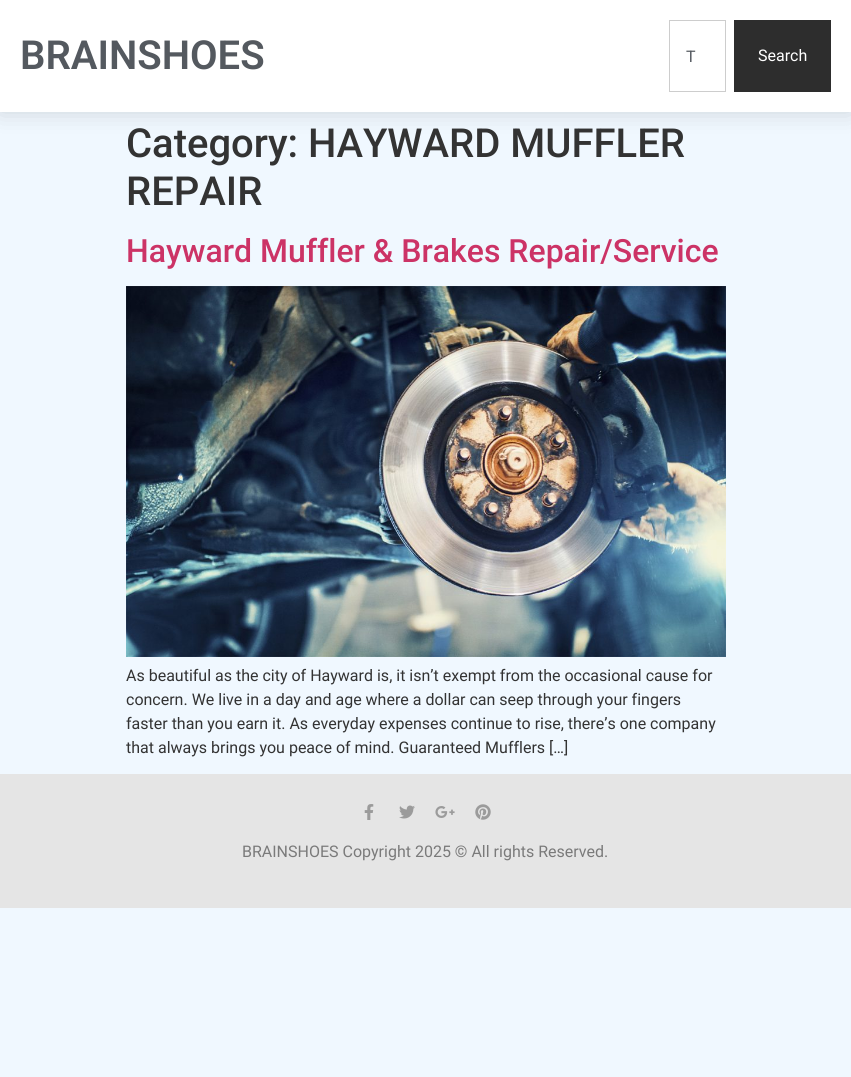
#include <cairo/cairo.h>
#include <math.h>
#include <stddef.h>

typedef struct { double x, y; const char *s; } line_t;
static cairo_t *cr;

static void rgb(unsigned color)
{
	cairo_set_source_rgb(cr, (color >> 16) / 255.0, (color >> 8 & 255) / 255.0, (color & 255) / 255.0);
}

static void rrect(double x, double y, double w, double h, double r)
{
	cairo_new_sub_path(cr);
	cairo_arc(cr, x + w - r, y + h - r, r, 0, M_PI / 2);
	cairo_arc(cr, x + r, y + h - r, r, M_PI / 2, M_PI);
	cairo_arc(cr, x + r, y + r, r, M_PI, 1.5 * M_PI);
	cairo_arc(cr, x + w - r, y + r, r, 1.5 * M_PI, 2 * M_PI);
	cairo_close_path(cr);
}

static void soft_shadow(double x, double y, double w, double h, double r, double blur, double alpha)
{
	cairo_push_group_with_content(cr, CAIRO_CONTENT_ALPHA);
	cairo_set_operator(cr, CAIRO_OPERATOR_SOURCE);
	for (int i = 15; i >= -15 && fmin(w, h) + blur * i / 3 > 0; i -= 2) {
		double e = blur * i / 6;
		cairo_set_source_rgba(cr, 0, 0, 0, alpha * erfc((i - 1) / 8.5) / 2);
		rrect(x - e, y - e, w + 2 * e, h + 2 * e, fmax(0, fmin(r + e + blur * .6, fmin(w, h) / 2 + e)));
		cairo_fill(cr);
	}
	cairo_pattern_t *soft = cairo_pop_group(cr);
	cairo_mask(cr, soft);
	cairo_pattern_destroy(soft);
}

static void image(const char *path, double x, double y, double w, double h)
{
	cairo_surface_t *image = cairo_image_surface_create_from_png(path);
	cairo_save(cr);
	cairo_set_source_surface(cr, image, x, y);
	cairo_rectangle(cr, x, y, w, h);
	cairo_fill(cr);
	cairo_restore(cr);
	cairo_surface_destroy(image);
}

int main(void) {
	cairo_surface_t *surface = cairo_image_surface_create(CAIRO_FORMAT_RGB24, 851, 1077);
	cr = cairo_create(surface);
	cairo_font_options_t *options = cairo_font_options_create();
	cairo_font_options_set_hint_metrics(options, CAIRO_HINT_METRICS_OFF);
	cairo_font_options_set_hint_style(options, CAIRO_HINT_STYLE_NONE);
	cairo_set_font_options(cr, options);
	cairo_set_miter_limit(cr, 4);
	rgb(0xf0f8ff);
	cairo_paint(cr);
	rgb(0x000000);
	soft_shadow(0, 0, 851, 112, 0, 12, 0.15);
	rgb(0xffffff);
	cairo_rectangle(cr, 0, 0, 851, 112);
	cairo_fill(cr);
	cairo_rectangle(cr, 669.5, 20.5, 56, 71);
	rgb(0xcdcdcd);
	cairo_set_line_width(cr, 1);
	cairo_stroke(cr);
	rgb(0x2d2d2d);
	cairo_rectangle(cr, 734, 20, 97, 72);
	cairo_fill(cr);
	image("img/1.png", 126, 286, 600, 371);
	rgb(0xe5e5e5);
	cairo_rectangle(cr, 0, 774, 851, 134);
	cairo_fill(cr);
	image("img/2.png", 364, 804, 10, 16);
	image("img/3.png", 399, 805, 16, 14);
	image("img/4.png", 435, 806, 20, 12);
	image("img/5.png", 475, 804, 16, 16);
	cairo_select_font_face(cr, "Roboto SemiBold", CAIRO_FONT_SLANT_NORMAL, CAIRO_FONT_WEIGHT_NORMAL);
	cairo_set_font_size(cr, 40);
	rgb(0x54595f);
	cairo_move_to(cr, 20, 69);
	cairo_show_text(cr, "BRAINSHOES");
	cairo_select_font_face(cr, "Roboto", CAIRO_FONT_SLANT_NORMAL, CAIRO_FONT_WEIGHT_NORMAL);
	cairo_set_font_size(cr, 16);
	cairo_move_to(cr, 686, 62);
	cairo_show_text(cr, "T");
	rgb(0xffffff);
	cairo_move_to(cr, 758, 61);
	cairo_show_text(cr, "Search");
	cairo_select_font_face(cr, "Roboto Medium", CAIRO_FONT_SLANT_NORMAL, CAIRO_FONT_WEIGHT_NORMAL);
	cairo_set_font_size(cr, 40);
	rgb(0x333333);
	cairo_move_to(cr, 126, 157);
	cairo_show_text(cr, "Category: HAYWARD MUFFLER");
	cairo_move_to(cr, 126, 205);
	cairo_show_text(cr, "REPAIR");
	cairo_set_font_size(cr, 32);
	rgb(0xcc3366);
	cairo_move_to(cr, 126, 262);
	cairo_show_text(cr, "Hayward Muffler & Brakes Repair/Service");
	cairo_select_font_face(cr, "Roboto", CAIRO_FONT_SLANT_NORMAL, CAIRO_FONT_WEIGHT_NORMAL);
	cairo_set_font_size(cr, 16);
	rgb(0x333333);
	{
		static const line_t items[] = {
			{126, 681, "As beautiful as the city of Hayward is, it isn’t exempt from the occasional cause for"},
			{126, 705, "concern. We live in a day and age where a dollar can seep through your fingers"},
			{126, 729, "faster than you earn it. As everyday expenses continue to rise, there’s one company"},
			{126, 753, "that always brings you peace of mind. Guaranteed Mufflers […]"},
		};
		for (size_t i = 0; i < sizeof items / sizeof *items; i++) {
			cairo_move_to(cr, items[i].x, items[i].y);
			cairo_show_text(cr, items[i].s);
		}
	}
	rgb(0x7a7a7a);
	cairo_move_to(cr, 242, 857);
	cairo_show_text(cr, "BRAINSHOES Copyright 2025 © All rights Reserved.");
	cairo_surface_write_to_png(surface, "page.png");
	cairo_font_options_destroy(options);
	cairo_destroy(cr);
	cairo_surface_destroy(surface);
	return 0;
}
